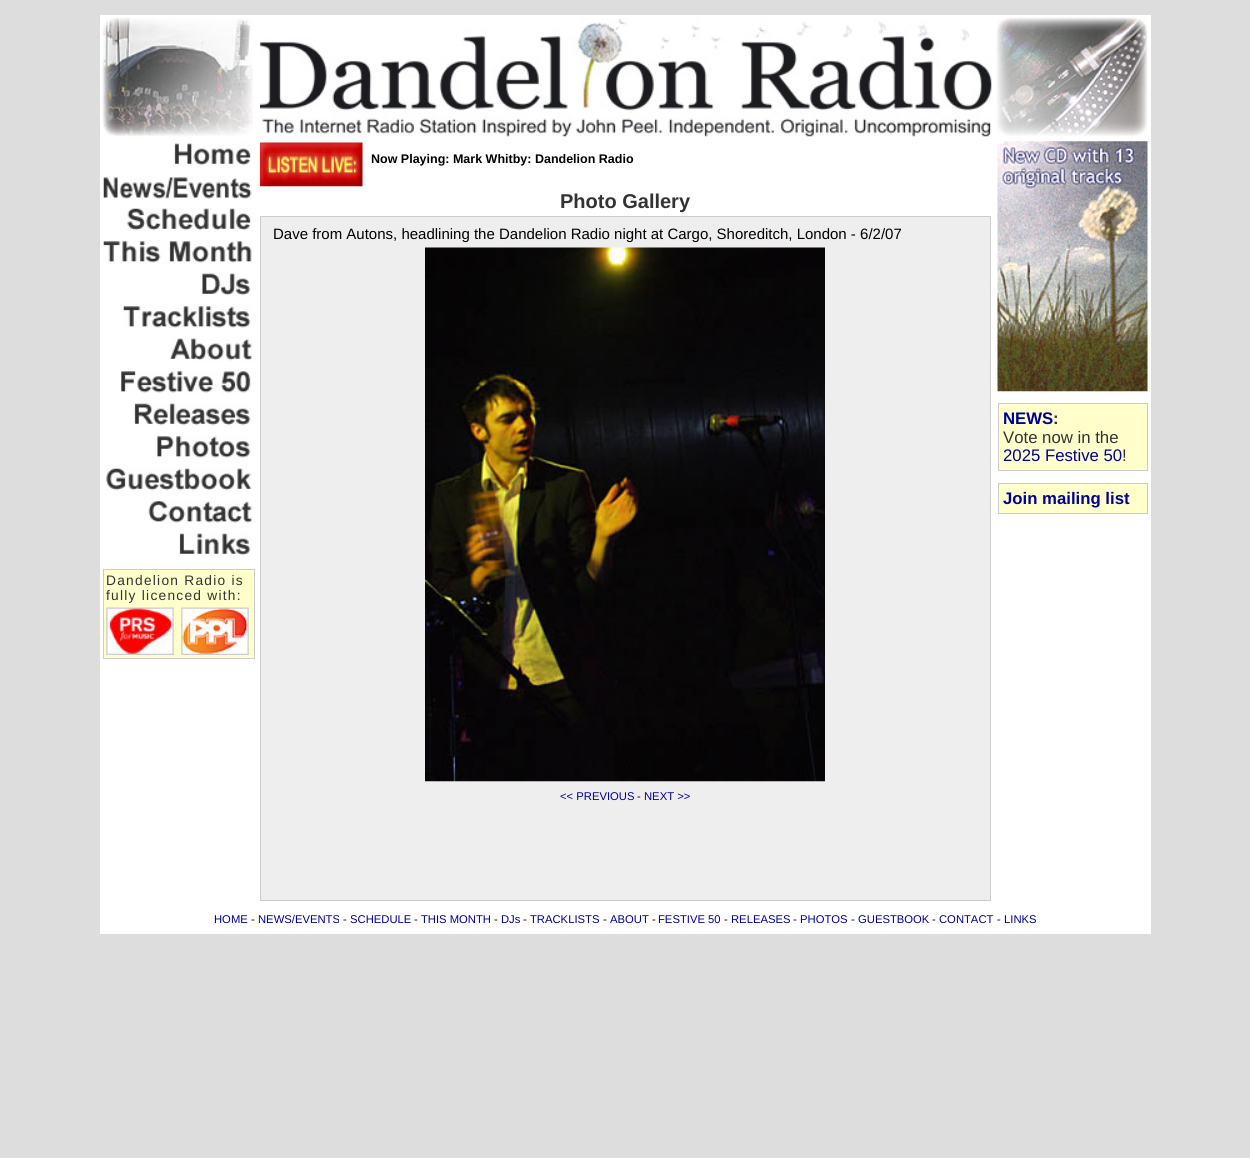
#include <cairo/cairo.h>
#include <math.h>
#include <stddef.h>

static cairo_t *cr;

static void rgb(unsigned color)
{
	cairo_set_source_rgb(cr, (color >> 16) / 255.0, (color >> 8 & 255) / 255.0, (color & 255) / 255.0);
}

static void tracked(double x, double y, const char *s, double letter, double word)
{
	cairo_move_to(cr, x, y);
	while (*s) {
		char ch[5] = {0};
		int n = 0;
		do ch[n++] = *s++; while ((*s & 0xC0) == 0x80);
		cairo_show_text(cr, ch);
		cairo_rel_move_to(cr, letter + word * (*ch == ' '), 0);
	}
}

static void image(const char *path, double x, double y, double w, double h)
{
	cairo_surface_t *image = cairo_image_surface_create_from_png(path);
	cairo_save(cr);
	cairo_set_source_surface(cr, image, x, y);
	cairo_rectangle(cr, x, y, w, h);
	cairo_fill(cr);
	cairo_restore(cr);
	cairo_surface_destroy(image);
}

int main(void) {
	cairo_surface_t *surface = cairo_image_surface_create(CAIRO_FORMAT_RGB24, 1250, 1158);
	cr = cairo_create(surface);
	cairo_font_options_t *options = cairo_font_options_create();
	cairo_font_options_set_hint_metrics(options, CAIRO_HINT_METRICS_OFF);
	cairo_font_options_set_hint_style(options, CAIRO_HINT_STYLE_NONE);
	cairo_set_font_options(cr, options);
	cairo_set_miter_limit(cr, 4);
	rgb(0xdddddd);
	cairo_paint(cr);
	rgb(0xffffff);
	cairo_rectangle(cr, 100, 15, 1051, 124);
	cairo_fill(cr);
	image("img/1.png", 102, 17, 151, 120);
	image("img/2.png", 260, 18, 732, 119);
	image("img/3.png", 996, 17, 152, 119);
	cairo_rectangle(cr, 258, 139, 736, 765);
	cairo_fill(cr);
	image("img/4.png", 260, 142, 103, 45);
	cairo_rectangle(cr, 994, 139, 157, 765);
	cairo_fill(cr);
	image("img/5.png", 997, 141, 151, 251);
	rgb(0xffffcc);
	cairo_rectangle(cr, 998.5, 403.5, 149, 67);
	cairo_fill_preserve(cr);
	rgb(0xcccccc);
	cairo_set_line_width(cr, 1);
	cairo_stroke(cr);
	rgb(0xffffcc);
	cairo_rectangle(cr, 998.5, 483.5, 149, 30);
	cairo_fill_preserve(cr);
	rgb(0xcccccc);
	cairo_stroke(cr);
	rgb(0xffffff);
	cairo_rectangle(cr, 100, 139, 158, 765);
	cairo_fill(cr);
	image("img/6.png", 174, 142, 77, 24);
	image("img/7.png", 103, 176, 149, 24);
	image("img/8.png", 127, 208, 124, 23);
	image("img/9.png", 103, 240, 149, 24);
	image("img/10.png", 201, 273, 50, 23);
	image("img/11.png", 123, 305, 128, 23);
	image("img/12.png", 170, 338, 83, 23);
	image("img/13.png", 120, 371, 131, 23);
	image("img/14.png", 134, 403, 117, 23);
	image("img/15.png", 157, 435, 94, 23);
	image("img/16.png", 106, 468, 146, 23);
	image("img/17.png", 148, 501, 105, 22);
	image("img/18.png", 179, 533, 72, 23);
	rgb(0xffffcc);
	cairo_rectangle(cr, 103.5, 569.5, 151, 89);
	cairo_fill_preserve(cr);
	rgb(0xcccccc);
	cairo_stroke(cr);
	image("img/19.png", 106, 607, 68, 48);
	image("img/20.png", 181, 607, 68, 48);
	rgb(0xeeeeee);
	cairo_rectangle(cr, 260.5, 216.5, 730, 684);
	cairo_fill_preserve(cr);
	rgb(0xcccccc);
	cairo_stroke(cr);
	image("img/21.png", 425, 247, 400, 535);
	rgb(0xffffff);
	cairo_rectangle(cr, 100, 904, 1051, 30);
	cairo_fill(cr);
	cairo_select_font_face(cr, "Liberation Sans", CAIRO_FONT_SLANT_NORMAL, CAIRO_FONT_WEIGHT_BOLD);
	cairo_set_font_size(cr, 12.5);
	rgb(0x000000);
	cairo_move_to(cr, 371, 163);
	cairo_show_text(cr, "Now Playing: Mark Whitby: Dandelion Radio");
	cairo_set_font_size(cr, 16.75);
	rgb(0x000099);
	cairo_move_to(cr, 1003, 424);
	cairo_show_text(cr, "NEWS");
	rgb(0x333333);
	cairo_move_to(cr, 1053, 424);
	cairo_show_text(cr, ":");
	cairo_select_font_face(cr, "Liberation Sans", CAIRO_FONT_SLANT_NORMAL, CAIRO_FONT_WEIGHT_NORMAL);
	cairo_move_to(cr, 1003, 443);
	cairo_show_text(cr, "Vote now in the");
	rgb(0x000099);
	cairo_move_to(cr, 1003, 461);
	cairo_show_text(cr, "2025 Festive 50");
	rgb(0x333333);
	cairo_move_to(cr, 1122, 461);
	cairo_show_text(cr, "!");
	cairo_select_font_face(cr, "Liberation Sans", CAIRO_FONT_SLANT_NORMAL, CAIRO_FONT_WEIGHT_BOLD);
	rgb(0x000099);
	cairo_move_to(cr, 1003, 504);
	cairo_show_text(cr, "Join mailing list");
	cairo_select_font_face(cr, "Liberation Sans", CAIRO_FONT_SLANT_NORMAL, CAIRO_FONT_WEIGHT_NORMAL);
	cairo_set_font_size(cr, 13.75);
	rgb(0x333333);
	tracked(106, 585, "Dandelion Radio is", 1.25, 0);
	tracked(106, 600, "fully licenced with:", 1.25, 0);
	cairo_select_font_face(cr, "Liberation Sans", CAIRO_FONT_SLANT_NORMAL, CAIRO_FONT_WEIGHT_BOLD);
	cairo_set_font_size(cr, 20);
	cairo_move_to(cr, 560, 208);
	cairo_show_text(cr, "Photo Gallery");
	cairo_select_font_face(cr, "Liberation Sans", CAIRO_FONT_SLANT_NORMAL, CAIRO_FONT_WEIGHT_NORMAL);
	cairo_set_font_size(cr, 15);
	rgb(0x000000);
	cairo_move_to(cr, 273, 239);
	cairo_show_text(cr, "Dave from Autons, headlining the Dandelion Radio night at Cargo, Shoreditch, London - 6/2/07");
	cairo_set_font_size(cr, 11.25);
	rgb(0x000099);
	cairo_move_to(cr, 560, 800);
	cairo_show_text(cr, "<< PREVIOUS");
	rgb(0x000000);
	cairo_move_to(cr, 637, 800);
	cairo_show_text(cr, "-");
	rgb(0x000099);
	cairo_move_to(cr, 644, 800);
	cairo_show_text(cr, "NEXT >>");
	cairo_move_to(cr, 214, 923);
	cairo_show_text(cr, "HOME");
	rgb(0x000000);
	cairo_move_to(cr, 251, 923);
	cairo_show_text(cr, "-");
	rgb(0x000099);
	cairo_move_to(cr, 258, 923);
	cairo_show_text(cr, "NEWS/EVENTS");
	rgb(0x000000);
	cairo_move_to(cr, 343, 923);
	cairo_show_text(cr, "-");
	rgb(0x000099);
	cairo_move_to(cr, 350, 923);
	cairo_show_text(cr, "SCHEDULE");
	rgb(0x000000);
	cairo_move_to(cr, 414, 923);
	cairo_show_text(cr, "-");
	rgb(0x000099);
	cairo_move_to(cr, 421, 923);
	cairo_show_text(cr, "THIS MONTH");
	rgb(0x000000);
	cairo_move_to(cr, 494, 923);
	cairo_show_text(cr, "-");
	rgb(0x000099);
	cairo_move_to(cr, 501, 923);
	cairo_show_text(cr, "DJs");
	rgb(0x000000);
	cairo_move_to(cr, 523, 923);
	cairo_show_text(cr, "-");
	rgb(0x000099);
	cairo_move_to(cr, 530, 923);
	cairo_show_text(cr, "TRACKLISTS");
	rgb(0x000000);
	cairo_move_to(cr, 603, 923);
	cairo_show_text(cr, "-");
	rgb(0x000099);
	cairo_move_to(cr, 610, 923);
	cairo_show_text(cr, "ABOUT");
	rgb(0x000000);
	cairo_move_to(cr, 652, 923);
	cairo_show_text(cr, "-");
	rgb(0x000099);
	cairo_move_to(cr, 658, 923);
	cairo_show_text(cr, "FESTIVE 50");
	rgb(0x000000);
	cairo_move_to(cr, 724, 923);
	cairo_show_text(cr, "-");
	rgb(0x000099);
	cairo_move_to(cr, 731, 923);
	cairo_show_text(cr, "RELEASES");
	rgb(0x000000);
	cairo_move_to(cr, 793, 923);
	cairo_show_text(cr, "-");
	rgb(0x000099);
	cairo_move_to(cr, 800, 923);
	cairo_show_text(cr, "PHOTOS");
	rgb(0x000000);
	cairo_move_to(cr, 851, 923);
	cairo_show_text(cr, "-");
	rgb(0x000099);
	cairo_move_to(cr, 858, 923);
	cairo_show_text(cr, "GUESTBOOK");
	rgb(0x000000);
	cairo_move_to(cr, 932, 923);
	cairo_show_text(cr, "-");
	rgb(0x000099);
	cairo_move_to(cr, 939, 923);
	cairo_show_text(cr, "CONTACT");
	rgb(0x000000);
	cairo_move_to(cr, 997, 923);
	cairo_show_text(cr, "-");
	rgb(0x000099);
	cairo_move_to(cr, 1004, 923);
	cairo_show_text(cr, "LINKS");
	cairo_surface_write_to_png(surface, "page.png");
	cairo_font_options_destroy(options);
	cairo_destroy(cr);
	cairo_surface_destroy(surface);
	return 0;
}
